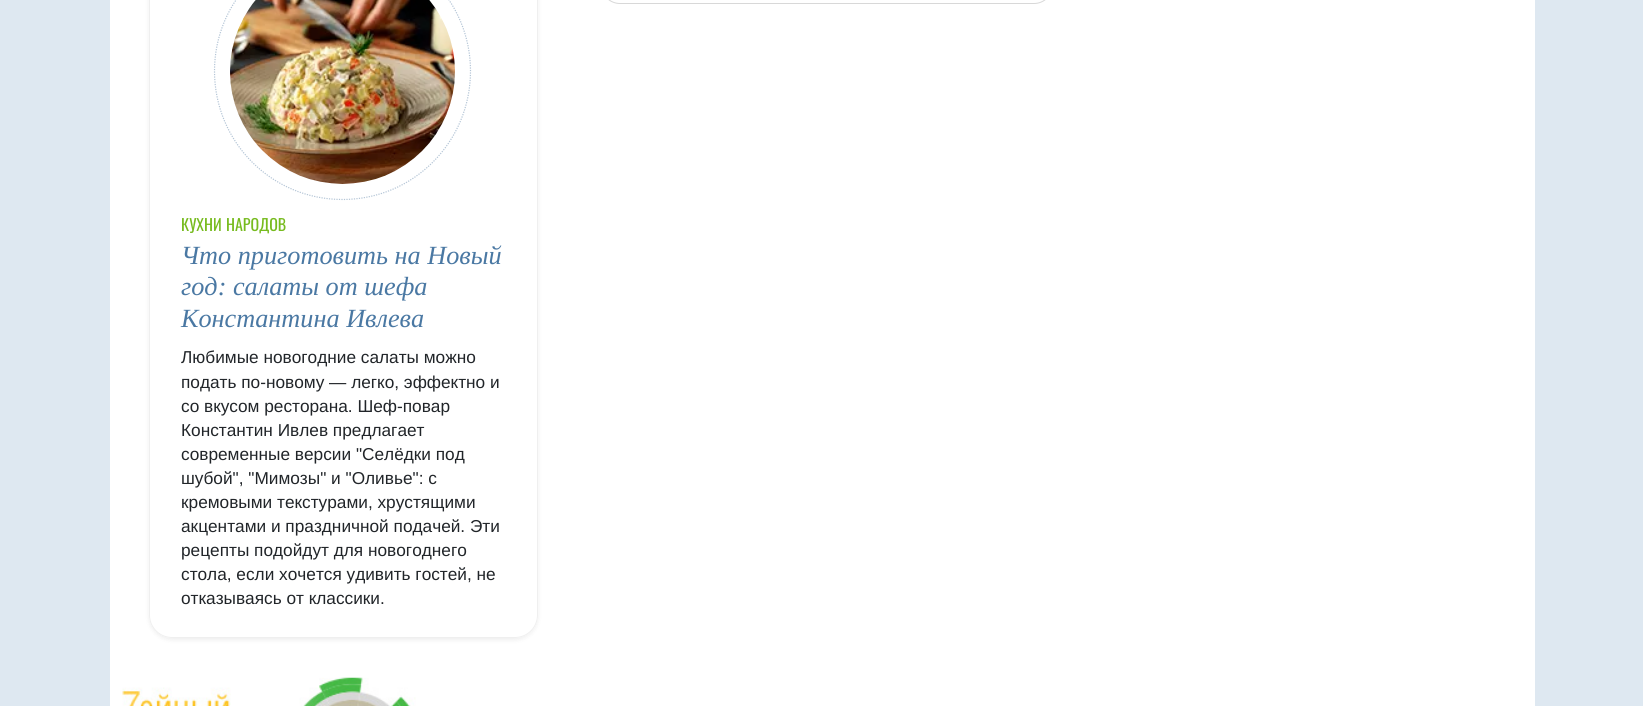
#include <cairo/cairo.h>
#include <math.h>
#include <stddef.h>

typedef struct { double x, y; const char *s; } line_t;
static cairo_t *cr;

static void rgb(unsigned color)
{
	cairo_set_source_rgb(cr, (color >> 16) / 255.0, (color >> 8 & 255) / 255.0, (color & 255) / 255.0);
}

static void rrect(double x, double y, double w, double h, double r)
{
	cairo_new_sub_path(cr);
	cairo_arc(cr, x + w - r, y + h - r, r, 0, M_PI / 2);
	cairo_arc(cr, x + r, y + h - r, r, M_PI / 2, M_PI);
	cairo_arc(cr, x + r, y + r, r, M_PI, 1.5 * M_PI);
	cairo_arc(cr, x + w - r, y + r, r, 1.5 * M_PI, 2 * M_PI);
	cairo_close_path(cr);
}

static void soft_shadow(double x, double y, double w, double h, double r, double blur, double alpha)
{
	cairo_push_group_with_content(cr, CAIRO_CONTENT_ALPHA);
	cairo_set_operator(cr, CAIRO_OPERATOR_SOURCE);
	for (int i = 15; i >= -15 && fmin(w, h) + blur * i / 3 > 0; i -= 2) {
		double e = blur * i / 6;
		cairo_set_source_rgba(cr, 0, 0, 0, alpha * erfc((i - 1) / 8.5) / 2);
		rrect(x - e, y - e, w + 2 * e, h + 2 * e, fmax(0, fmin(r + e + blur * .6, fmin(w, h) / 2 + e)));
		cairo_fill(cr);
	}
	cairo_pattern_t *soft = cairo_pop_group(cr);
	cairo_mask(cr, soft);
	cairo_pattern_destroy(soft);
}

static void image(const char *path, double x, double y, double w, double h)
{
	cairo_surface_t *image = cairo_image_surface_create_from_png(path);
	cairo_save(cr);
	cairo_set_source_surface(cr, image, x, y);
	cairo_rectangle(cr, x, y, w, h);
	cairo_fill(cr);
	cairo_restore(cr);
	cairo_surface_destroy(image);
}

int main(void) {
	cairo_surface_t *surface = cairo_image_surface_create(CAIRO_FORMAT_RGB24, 1643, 706);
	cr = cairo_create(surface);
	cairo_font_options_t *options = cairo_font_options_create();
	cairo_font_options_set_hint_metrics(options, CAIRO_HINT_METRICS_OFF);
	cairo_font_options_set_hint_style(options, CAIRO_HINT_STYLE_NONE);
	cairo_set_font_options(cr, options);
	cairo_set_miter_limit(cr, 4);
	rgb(0xdee8f1);
	cairo_paint(cr);
	rgb(0xffffff);
	cairo_rectangle(cr, 110, 0, 1425, 706);
	cairo_fill(cr);
	rrect(601.5, -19.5, 451, 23, 18.5);
	rgb(0xd8d8d8);
	cairo_set_line_width(cr, 1);
	cairo_stroke(cr);
	cairo_save(cr);
	cairo_set_fill_rule(cr, CAIRO_FILL_RULE_EVEN_ODD);
	cairo_new_path(cr);
	cairo_move_to(cr, 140, 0);
	cairo_line_to(cr, 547, 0);
	cairo_line_to(cr, 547, 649);
	cairo_line_to(cr, 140, 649);
	cairo_close_path(cr);
	cairo_move_to(cr, 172, -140);
	cairo_line_to(cr, 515, -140);
	cairo_curve_to(cr, 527.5, -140, 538, -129.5, 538, -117);
	cairo_line_to(cr, 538, 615);
	cairo_curve_to(cr, 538, 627.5, 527.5, 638, 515, 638);
	cairo_line_to(cr, 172, 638);
	cairo_curve_to(cr, 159.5, 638, 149, 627.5, 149, 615);
	cairo_line_to(cr, 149, -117);
	cairo_curve_to(cr, 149, -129.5, 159.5, -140, 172, -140);
	cairo_close_path(cr);
	cairo_clip(cr);
	rgb(0x000000);
	soft_shadow(149, -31, 389, 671, 23, 2.5, 0.07);
	cairo_restore(cr);
	rrect(149.5, -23.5, 388, 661, 22.5);
	rgb(0xefefef);
	cairo_stroke(cr);
	cairo_new_path(cr);
	cairo_move_to(cr, 342.5, -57);
	cairo_curve_to(cr, 413.5, -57, 470.5, 0.5, 470.5, 71);
	cairo_curve_to(cr, 470.5, 142, 413.5, 199.5, 342.5, 199.5);
	cairo_curve_to(cr, 271.5, 199.5, 214.5, 142, 214.5, 71);
	cairo_curve_to(cr, 214.5, 0.5, 271.5, -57, 342.5, -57);
	cairo_close_path(cr);
	rgb(0xb4c5d6);
	cairo_set_line_width(cr, 1.2);
	cairo_set_dash(cr, (double[]){1.25, 1.25}, 2, 0);
	cairo_stroke(cr);
	image("img/1.png", 230, 0, 225, 184);
	image("img/2.png", 122, 677, 294, 29);
	cairo_select_font_face(cr, "Oswald", CAIRO_FONT_SLANT_NORMAL, CAIRO_FONT_WEIGHT_NORMAL);
	cairo_set_font_size(cr, 16);
	rgb(0x77bb1f);
	cairo_move_to(cr, 181, 231);
	cairo_show_text(cr, "КУХНИ");
	cairo_move_to(cr, 226, 231);
	cairo_show_text(cr, "НАРОДОВ");
	cairo_select_font_face(cr, "Liberation Serif", CAIRO_FONT_SLANT_ITALIC, CAIRO_FONT_WEIGHT_NORMAL);
	cairo_set_font_size(cr, 26.25);
	rgb(0x4a78a3);
	{
		static const line_t items[] = {
			{181, 264, "Что приготовить на Новый"},
			{181, 295, "год: салаты от шефа"},
			{181, 327, "Константина Ивлева"},
		};
		for (size_t i = 0; i < sizeof items / sizeof *items; i++) {
			cairo_move_to(cr, items[i].x, items[i].y);
			cairo_show_text(cr, items[i].s);
		}
	}
	cairo_select_font_face(cr, "Liberation Sans", CAIRO_FONT_SLANT_NORMAL, CAIRO_FONT_WEIGHT_NORMAL);
	cairo_set_font_size(cr, 17.25);
	rgb(0x212529);
	{
		static const line_t items[] = {
			{181, 363, "Любимые новогодние салаты можно"},
			{181, 388, "подать по-новому — легко, эффектно и"},
			{181, 412, "со вкусом ресторана. Шеф-повар"},
			{181, 436, "Константин Ивлев предлагает"},
			{181, 460, "современные версии \"Селёдки под"},
			{181, 484, "шубой\", \"Мимозы\" и \"Оливье\": с"},
			{181, 508, "кремовыми текстурами, хрустящими"},
			{181, 532, "акцентами и праздничной подачей. Эти"},
			{181, 556, "рецепты подойдут для новогоднего"},
			{181, 580, "стола, если хочется удивить гостей, не"},
			{181, 604, "отказываясь от классики."},
		};
		for (size_t i = 0; i < sizeof items / sizeof *items; i++) {
			cairo_move_to(cr, items[i].x, items[i].y);
			cairo_show_text(cr, items[i].s);
		}
	}
	cairo_surface_write_to_png(surface, "page.png");
	cairo_font_options_destroy(options);
	cairo_destroy(cr);
	cairo_surface_destroy(surface);
	return 0;
}
